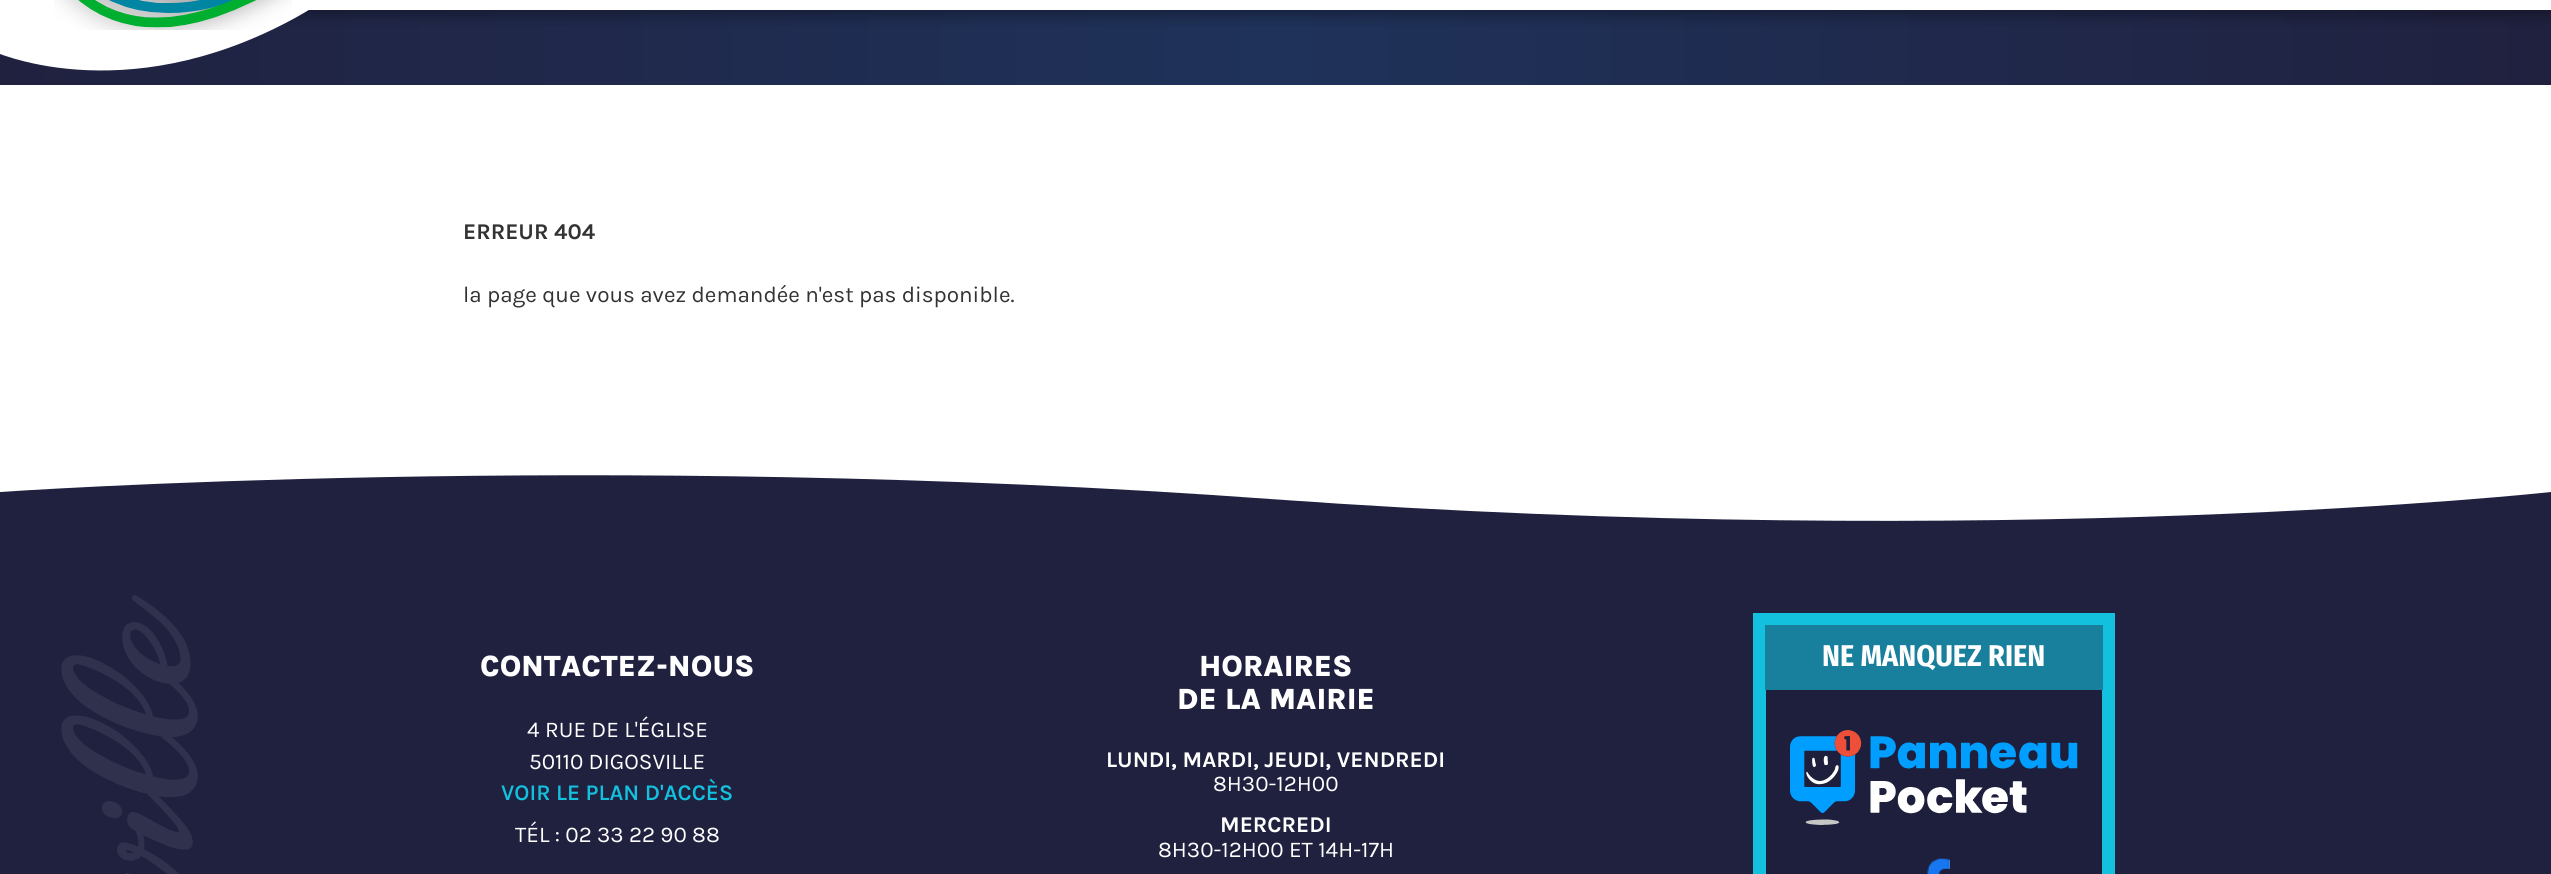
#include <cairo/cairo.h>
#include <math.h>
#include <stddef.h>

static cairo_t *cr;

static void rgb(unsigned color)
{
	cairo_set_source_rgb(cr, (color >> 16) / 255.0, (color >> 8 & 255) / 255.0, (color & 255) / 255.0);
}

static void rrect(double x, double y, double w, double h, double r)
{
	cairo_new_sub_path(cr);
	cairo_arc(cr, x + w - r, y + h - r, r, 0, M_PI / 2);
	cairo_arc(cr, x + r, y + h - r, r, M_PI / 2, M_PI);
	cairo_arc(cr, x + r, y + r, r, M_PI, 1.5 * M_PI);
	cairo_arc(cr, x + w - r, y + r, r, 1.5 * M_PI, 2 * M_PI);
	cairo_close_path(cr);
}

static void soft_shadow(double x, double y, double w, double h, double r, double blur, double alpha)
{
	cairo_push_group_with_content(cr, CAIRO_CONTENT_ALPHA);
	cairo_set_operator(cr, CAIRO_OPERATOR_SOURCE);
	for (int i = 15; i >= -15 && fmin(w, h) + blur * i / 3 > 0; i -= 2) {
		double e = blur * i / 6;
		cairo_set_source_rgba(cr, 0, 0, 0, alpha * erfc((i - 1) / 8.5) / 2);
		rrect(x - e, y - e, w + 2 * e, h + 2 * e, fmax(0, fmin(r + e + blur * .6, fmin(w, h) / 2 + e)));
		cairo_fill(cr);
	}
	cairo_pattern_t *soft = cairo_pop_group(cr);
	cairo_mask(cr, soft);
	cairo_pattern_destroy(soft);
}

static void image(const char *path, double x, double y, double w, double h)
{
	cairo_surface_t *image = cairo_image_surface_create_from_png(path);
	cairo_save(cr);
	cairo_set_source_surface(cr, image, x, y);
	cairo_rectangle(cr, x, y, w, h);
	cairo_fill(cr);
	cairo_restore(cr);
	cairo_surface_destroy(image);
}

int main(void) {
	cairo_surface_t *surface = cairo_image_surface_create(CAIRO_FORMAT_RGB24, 2551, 874);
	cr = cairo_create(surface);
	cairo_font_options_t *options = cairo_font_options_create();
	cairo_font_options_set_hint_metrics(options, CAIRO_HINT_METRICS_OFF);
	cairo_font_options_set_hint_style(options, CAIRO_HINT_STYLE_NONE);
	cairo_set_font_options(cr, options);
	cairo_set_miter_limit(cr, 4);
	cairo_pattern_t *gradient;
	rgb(0xffffff);
	cairo_paint(cr);
	gradient = cairo_pattern_create_linear(0, 48, 2551, 47);
	cairo_pattern_add_color_stop_rgba(gradient, 0, 0.125, 0.129, 0.247, 1);
	cairo_pattern_add_color_stop_rgba(gradient, 0.5, 0.122, 0.196, 0.353, 1);
	cairo_pattern_add_color_stop_rgba(gradient, 1, 0.125, 0.129, 0.247, 1);
	cairo_set_source(cr, gradient);
	cairo_pattern_destroy(gradient);
	cairo_rectangle(cr, 0, 10, 2551, 75);
	cairo_fill(cr);
	cairo_save(cr);
	cairo_rectangle(cr, 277, 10, 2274, 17);
	cairo_clip(cr);
	rgb(0x000000);
	soft_shadow(0, -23, 2551, 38, 0, 7.5, 0.35);
	cairo_restore(cr);
	rgb(0xffffff);
	cairo_set_fill_rule(cr, CAIRO_FILL_RULE_EVEN_ODD);
	cairo_new_path(cr);
	cairo_move_to(cr, -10, -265);
	cairo_line_to(cr, 483, -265);
	cairo_curve_to(cr, 483, -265, 466, -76, 295, 18);
	cairo_curve_to(cr, 121, 113, -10, 50, -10, 50);
	cairo_close_path(cr);
	cairo_fill(cr);
	image("img/1.png", 54, 0, 238, 30);
	rgb(0x20213f);
	cairo_rectangle(cr, 0, 538, 2551, 336);
	cairo_fill(cr);
	image("img/2.png", 61, 595, 137, 279);
	cairo_set_fill_rule(cr, CAIRO_FILL_RULE_WINDING);
	cairo_new_path(cr);
	cairo_move_to(cr, 0, 492);
	cairo_line_to(cr, 0, 538);
	cairo_line_to(cr, 2551, 538);
	cairo_line_to(cr, 2551, 492);
	cairo_curve_to(cr, 2551, 492, 2005, 552, 1270, 499);
	cairo_curve_to(cr, 598, 450, 0, 492, 0, 492);
	cairo_close_path(cr);
	cairo_fill(cr);
	rgb(0x1e1f3c);
	cairo_rectangle(cr, 1766, 690, 336, 184);
	cairo_fill(cr);
	cairo_rectangle(cr, 1759.5, 619.5, 349, 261);
	rgb(0x13c1df);
	cairo_set_line_width(cr, 13);
	cairo_stroke(cr);
	rgb(0x187f9d);
	cairo_rectangle(cr, 1765, 625, 338, 65);
	cairo_fill(cr);
	image("img/3.png", 1790, 730, 288, 95);
	image("img/4.png", 1927, 858, 23, 16);
	cairo_select_font_face(cr, "Karla", CAIRO_FONT_SLANT_NORMAL, CAIRO_FONT_WEIGHT_BOLD);
	cairo_set_font_size(cr, 22.5);
	rgb(0x333333);
	cairo_move_to(cr, 463, 239);
	cairo_show_text(cr, "ERREUR 404");
	cairo_select_font_face(cr, "Karla", CAIRO_FONT_SLANT_NORMAL, CAIRO_FONT_WEIGHT_NORMAL);
	cairo_move_to(cr, 463, 302);
	cairo_show_text(cr, "la page que vous avez demandée n'est pas disponible.");
	cairo_select_font_face(cr, "Karla ExtraBold", CAIRO_FONT_SLANT_NORMAL, CAIRO_FONT_WEIGHT_NORMAL);
	cairo_set_font_size(cr, 30);
	rgb(0xffffff);
	cairo_move_to(cr, 480, 676);
	cairo_show_text(cr, "CONTACTEZ-NOUS");
	cairo_select_font_face(cr, "Karla", CAIRO_FONT_SLANT_NORMAL, CAIRO_FONT_WEIGHT_NORMAL);
	cairo_set_font_size(cr, 22.5);
	cairo_move_to(cr, 527, 737);
	cairo_show_text(cr, "4 RUE DE L'ÉGLISE");
	cairo_move_to(cr, 529, 769);
	cairo_show_text(cr, "50110 DIGOSVILLE");
	cairo_select_font_face(cr, "Karla SemiBold", CAIRO_FONT_SLANT_NORMAL, CAIRO_FONT_WEIGHT_NORMAL);
	rgb(0x13c1df);
	cairo_move_to(cr, 501, 800);
	cairo_show_text(cr, "VOIR LE PLAN D'ACCÈS");
	cairo_select_font_face(cr, "Karla", CAIRO_FONT_SLANT_NORMAL, CAIRO_FONT_WEIGHT_NORMAL);
	rgb(0xffffff);
	cairo_move_to(cr, 515, 842);
	cairo_show_text(cr, "TÉL : 02 33 22 90 88");
	cairo_select_font_face(cr, "Karla ExtraBold", CAIRO_FONT_SLANT_NORMAL, CAIRO_FONT_WEIGHT_NORMAL);
	cairo_set_font_size(cr, 30);
	cairo_move_to(cr, 1199, 676);
	cairo_show_text(cr, "HORAIRES");
	cairo_move_to(cr, 1177, 709);
	cairo_show_text(cr, "DE LA MAIRIE");
	cairo_select_font_face(cr, "Karla", CAIRO_FONT_SLANT_NORMAL, CAIRO_FONT_WEIGHT_BOLD);
	cairo_set_font_size(cr, 22.5);
	cairo_move_to(cr, 1106, 767);
	cairo_show_text(cr, "LUNDI, MARDI, JEUDI, VENDREDI");
	cairo_select_font_face(cr, "Karla", CAIRO_FONT_SLANT_NORMAL, CAIRO_FONT_WEIGHT_NORMAL);
	cairo_move_to(cr, 1213, 791);
	cairo_show_text(cr, "8H30-12H00");
	cairo_select_font_face(cr, "Karla", CAIRO_FONT_SLANT_NORMAL, CAIRO_FONT_WEIGHT_BOLD);
	cairo_move_to(cr, 1220, 832);
	cairo_show_text(cr, "MERCREDI");
	cairo_select_font_face(cr, "Karla", CAIRO_FONT_SLANT_NORMAL, CAIRO_FONT_WEIGHT_NORMAL);
	cairo_move_to(cr, 1158, 857);
	cairo_show_text(cr, "8H30-12H00 ET 14H-17H");
	cairo_select_font_face(cr, "Fira Sans Condensed", CAIRO_FONT_SLANT_NORMAL, CAIRO_FONT_WEIGHT_BOLD);
	cairo_set_font_size(cr, 30);
	cairo_move_to(cr, 1822, 666);
	cairo_show_text(cr, "NE MANQUEZ RIEN");
	cairo_surface_write_to_png(surface, "page.png");
	cairo_font_options_destroy(options);
	cairo_destroy(cr);
	cairo_surface_destroy(surface);
	return 0;
}
